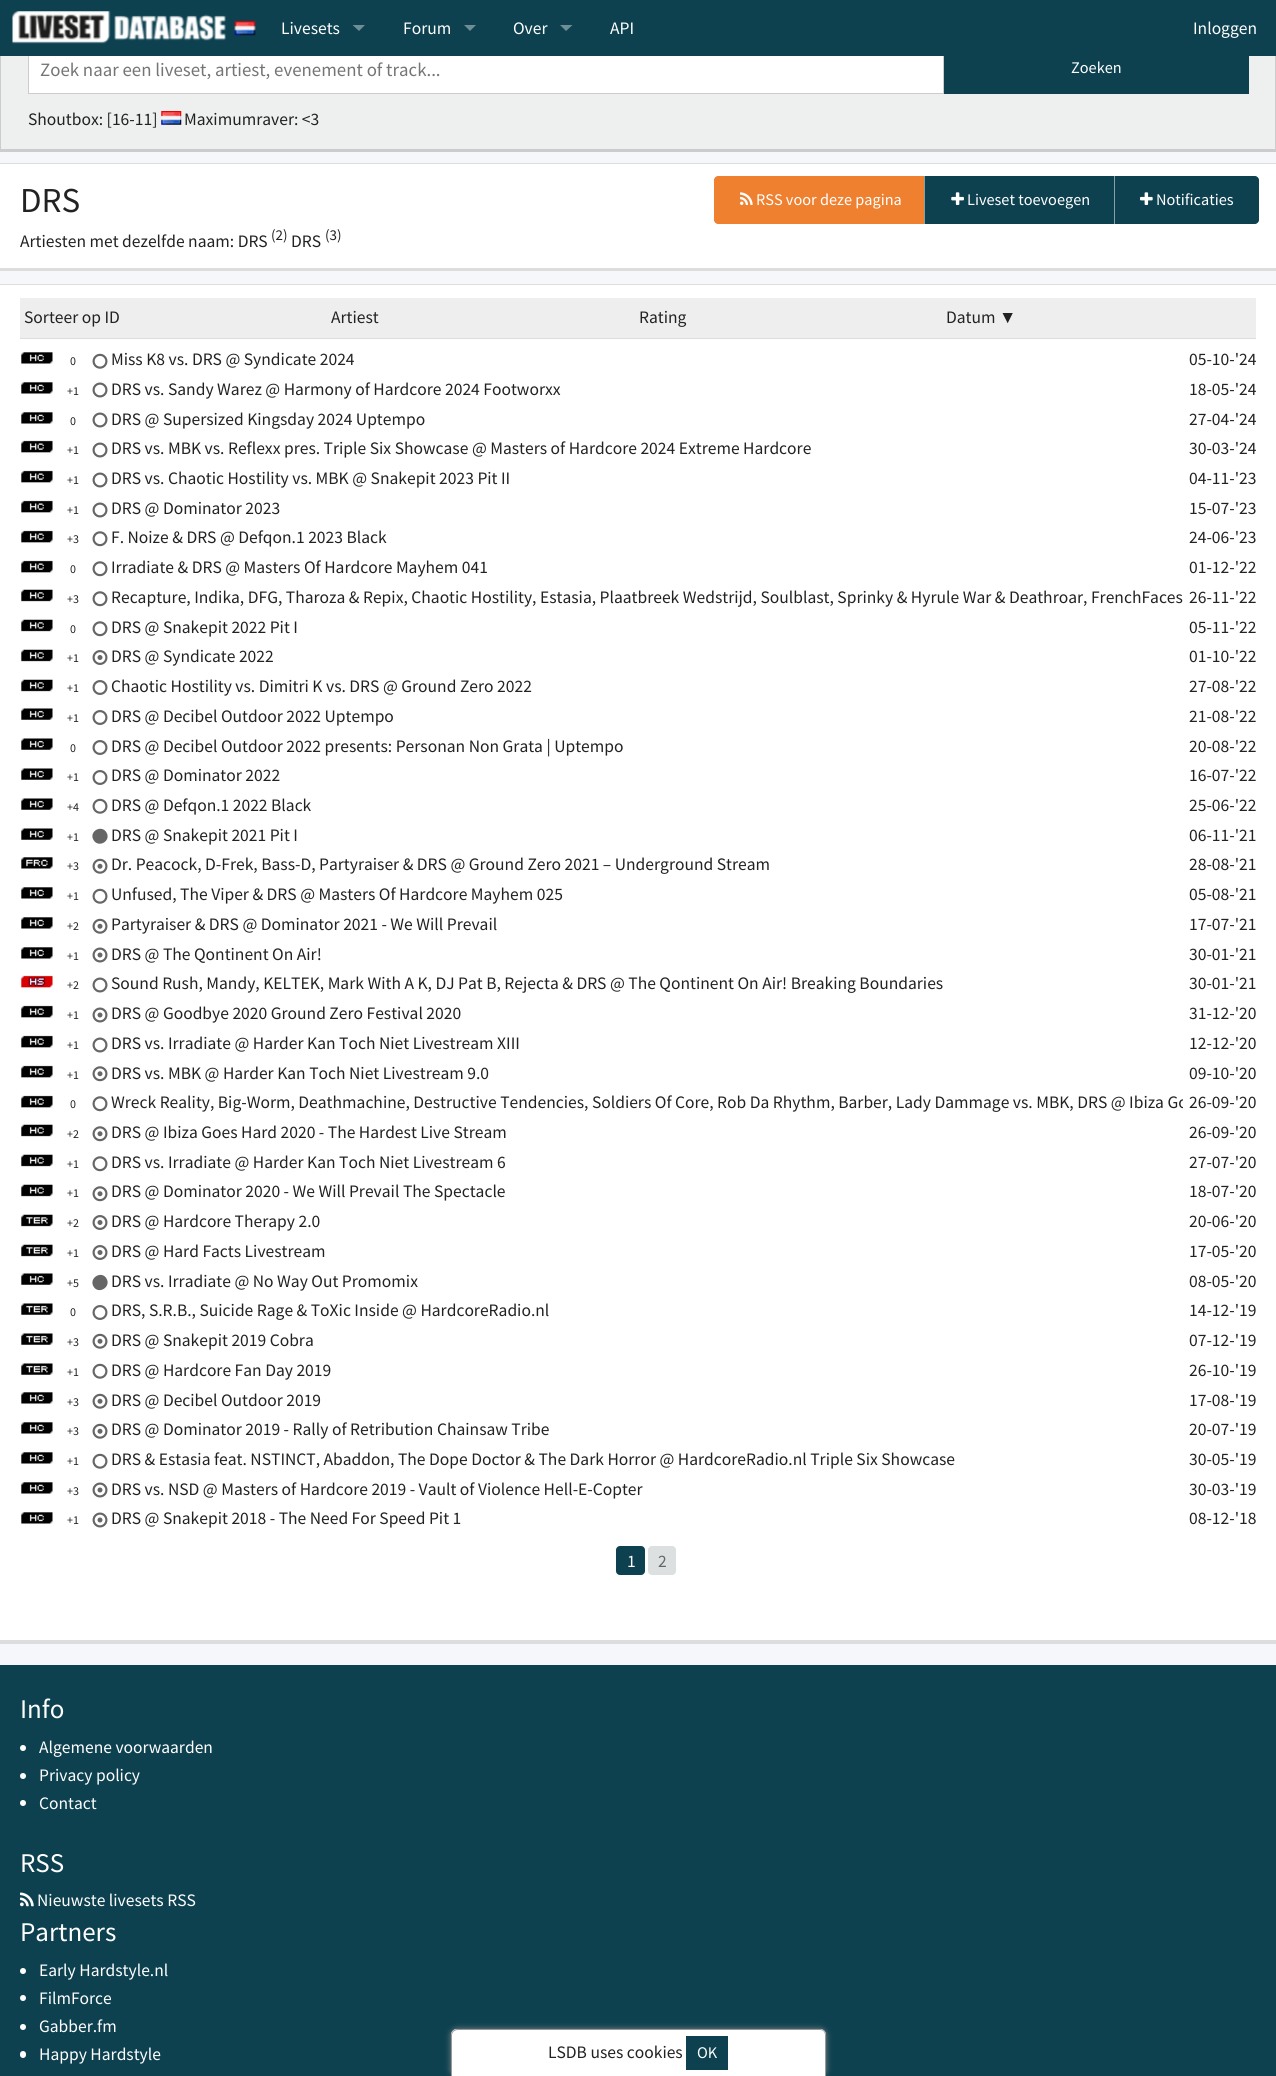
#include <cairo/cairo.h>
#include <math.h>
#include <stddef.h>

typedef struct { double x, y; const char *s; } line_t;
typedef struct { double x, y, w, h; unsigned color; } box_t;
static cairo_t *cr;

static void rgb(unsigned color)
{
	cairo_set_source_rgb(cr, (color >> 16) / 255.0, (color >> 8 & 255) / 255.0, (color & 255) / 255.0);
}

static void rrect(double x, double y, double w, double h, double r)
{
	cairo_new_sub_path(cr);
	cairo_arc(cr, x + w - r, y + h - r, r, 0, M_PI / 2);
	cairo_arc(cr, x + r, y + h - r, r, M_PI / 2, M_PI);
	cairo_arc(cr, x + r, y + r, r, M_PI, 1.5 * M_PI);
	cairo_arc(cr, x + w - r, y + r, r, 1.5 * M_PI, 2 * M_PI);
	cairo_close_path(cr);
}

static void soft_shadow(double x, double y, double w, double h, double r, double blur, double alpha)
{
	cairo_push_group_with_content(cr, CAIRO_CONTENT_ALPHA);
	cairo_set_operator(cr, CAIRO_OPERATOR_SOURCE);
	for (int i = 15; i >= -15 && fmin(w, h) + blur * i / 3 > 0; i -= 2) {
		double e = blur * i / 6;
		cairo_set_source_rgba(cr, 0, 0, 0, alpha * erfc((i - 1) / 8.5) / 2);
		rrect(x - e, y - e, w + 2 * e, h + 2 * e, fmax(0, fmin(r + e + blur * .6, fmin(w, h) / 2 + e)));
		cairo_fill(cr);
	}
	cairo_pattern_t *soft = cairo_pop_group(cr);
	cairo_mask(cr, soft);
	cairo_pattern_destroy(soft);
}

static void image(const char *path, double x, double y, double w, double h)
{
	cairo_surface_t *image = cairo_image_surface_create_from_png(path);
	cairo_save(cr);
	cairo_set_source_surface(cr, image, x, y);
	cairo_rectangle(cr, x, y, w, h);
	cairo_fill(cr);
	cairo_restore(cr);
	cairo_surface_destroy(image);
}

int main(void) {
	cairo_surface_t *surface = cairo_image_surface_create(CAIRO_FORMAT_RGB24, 1276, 2076);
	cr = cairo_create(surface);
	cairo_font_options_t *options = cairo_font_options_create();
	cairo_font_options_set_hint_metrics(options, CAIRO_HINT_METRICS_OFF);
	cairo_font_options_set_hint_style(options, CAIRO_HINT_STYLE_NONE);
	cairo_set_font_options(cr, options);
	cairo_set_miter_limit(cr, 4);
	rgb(0xf6f7fa);
	cairo_paint(cr);
	rgb(0xeef0f0);
	cairo_rectangle(cr, 1, 56, 1274, 93);
	cairo_fill(cr);
	rgb(0xffffff);
	cairo_rectangle(cr, 29, 56, 914, 37);
	cairo_fill(cr);
	cairo_rectangle(cr, 28.5, 44.5, 915, 49);
	rgb(0xcccccc);
	cairo_set_line_width(cr, 1);
	cairo_stroke(cr);
	rgb(0x0d4150);
	cairo_rectangle(cr, 0, 0, 1276, 56);
	cairo_fill(cr);
	image("img/1.png", 12, 11, 214, 33);
	image("img/2.png", 234, 21, 22, 15);
	rgb(0x6e8d96);
	cairo_new_path(cr);
	cairo_move_to(cr, 352.5, 25);
	cairo_line_to(cr, 365, 25);
	cairo_line_to(cr, 359, 31);
	cairo_close_path(cr);
	cairo_fill(cr);
	cairo_new_path(cr);
	cairo_move_to(cr, 464, 25);
	cairo_line_to(cr, 476, 25);
	cairo_line_to(cr, 470, 31);
	cairo_close_path(cr);
	cairo_fill(cr);
	cairo_new_path(cr);
	cairo_move_to(cr, 560, 25);
	cairo_line_to(cr, 572.5, 25);
	cairo_line_to(cr, 566, 31);
	cairo_close_path(cr);
	cairo_fill(cr);
	{
		static const box_t items[] = {
			{1275, 56, 1, 95, 0xcccccc},
			{0, 149, 1276, 3, 0xcccccc},
			{0, 56, 1, 95, 0xcccccc},
			{944, 56, 305, 38, 0x0d4150},
		};
		for (size_t i = 0; i < sizeof items / sizeof *items; i++) {
			rgb(items[i].color);
			cairo_rectangle(cr, items[i].x, items[i].y, items[i].w, items[i].h);
			cairo_fill(cr);
		}
	}
	image("img/3.png", 161, 111, 21, 14);
	rgb(0xdddddd);
	cairo_set_fill_rule(cr, CAIRO_FILL_RULE_EVEN_ODD);
	cairo_new_path(cr);
	cairo_move_to(cr, -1, 163);
	cairo_line_to(cr, -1, 271);
	cairo_line_to(cr, 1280, 271);
	cairo_line_to(cr, 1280, 163);
	cairo_close_path(cr);
	cairo_move_to(cr, 0, 164);
	cairo_line_to(cr, 0, 268);
	cairo_line_to(cr, 1276, 268);
	cairo_line_to(cr, 1276, 164);
	cairo_close_path(cr);
	cairo_fill(cr);
	rgb(0xffffff);
	cairo_rectangle(cr, 0, 164, 1276, 104);
	cairo_fill(cr);
	rgb(0xee802f);
	cairo_new_path(cr);
	cairo_move_to(cr, 718, 176);
	cairo_line_to(cr, 926, 176);
	cairo_line_to(cr, 926, 224);
	cairo_line_to(cr, 718, 224);
	cairo_curve_to(cr, 716, 224, 714, 222, 714, 220);
	cairo_line_to(cr, 714, 180);
	cairo_curve_to(cr, 714, 178, 716, 176, 718, 176);
	cairo_close_path(cr);
	cairo_fill(cr);
	image("img/4.png", 740, 192, 13, 13);
	rgb(0x0d4150);
	cairo_rectangle(cr, 925, 176, 189, 48);
	cairo_fill(cr);
	rgb(0x86a0a8);
	cairo_rectangle(cr, 924, 176, 1, 48);
	cairo_fill(cr);
	image("img/5.png", 951, 192, 13, 13);
	rgb(0x0d4150);
	cairo_new_path(cr);
	cairo_move_to(cr, 1114, 176);
	cairo_line_to(cr, 1255, 176);
	cairo_curve_to(cr, 1257, 176, 1259, 178, 1259, 180);
	cairo_line_to(cr, 1259, 220);
	cairo_curve_to(cr, 1259, 222, 1257, 224, 1255, 224);
	cairo_line_to(cr, 1114, 224);
	cairo_close_path(cr);
	cairo_fill(cr);
	rgb(0x86a0a8);
	cairo_rectangle(cr, 1114, 176, 1, 48);
	cairo_fill(cr);
	image("img/6.png", 1140, 192, 13, 13);
	rgb(0xdddddd);
	cairo_new_path(cr);
	cairo_move_to(cr, -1, 284);
	cairo_line_to(cr, -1, 1644);
	cairo_line_to(cr, 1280, 1644);
	cairo_line_to(cr, 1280, 284);
	cairo_close_path(cr);
	cairo_move_to(cr, 0, 285);
	cairo_line_to(cr, 0, 1640);
	cairo_line_to(cr, 1276, 1640);
	cairo_line_to(cr, 1276, 285);
	cairo_close_path(cr);
	cairo_fill(cr);
	{
		static const box_t items[] = {
			{0, 285, 1276, 1355, 0xffffff},
			{20, 298, 1236, 40, 0xeeeeee},
			{20, 338, 1236, 1, 0xdddddd},
		};
		for (size_t i = 0; i < sizeof items / sizeof *items; i++) {
			rgb(items[i].color);
			cairo_rectangle(cr, items[i].x, items[i].y, items[i].w, items[i].h);
			cairo_fill(cr);
		}
	}
	image("img/7.png", 21, 352, 32, 12);
	image("img/8.png", 92, 353, 16, 16);
	image("img/7.png", 21, 382, 32, 12);
	image("img/9.png", 92, 382, 16, 16);
	image("img/7.png", 21, 412, 32, 12);
	image("img/9.png", 92, 412, 16, 16);
	image("img/10.png", 21, 440, 32, 13);
	image("img/9.png", 92, 442, 16, 16);
	image("img/10.png", 21, 470, 32, 13);
	image("img/9.png", 92, 472, 16, 16);
	image("img/10.png", 21, 500, 32, 13);
	image("img/9.png", 92, 502, 16, 16);
	image("img/10.png", 21, 530, 32, 13);
	image("img/11.png", 92, 531, 16, 16);
	image("img/10.png", 21, 560, 32, 13);
	image("img/11.png", 92, 561, 16, 16);
	image("img/12.png", 21, 589, 32, 13);
	image("img/11.png", 92, 591, 16, 16);
	image("img/12.png", 21, 619, 32, 13);
	image("img/11.png", 92, 621, 16, 16);
	image("img/12.png", 21, 649, 32, 13);
	image("img/13.png", 92, 650, 16, 15);
	image("img/12.png", 21, 679, 32, 13);
	image("img/14.png", 92, 680, 16, 15);
	image("img/15.png", 21, 708, 32, 12);
	image("img/14.png", 92, 710, 16, 15);
	image("img/15.png", 21, 738, 32, 12);
	image("img/14.png", 92, 740, 16, 15);
	image("img/15.png", 21, 768, 32, 12);
	image("img/14.png", 92, 770, 16, 15);
	image("img/15.png", 21, 798, 32, 12);
	image("img/8.png", 92, 798, 16, 16);
	image("img/15.png", 21, 828, 32, 12);
	rgb(0x666666);
	cairo_set_fill_rule(cr, CAIRO_FILL_RULE_WINDING);
	cairo_new_path(cr);
	cairo_move_to(cr, 106.5, 832.5);
	cairo_curve_to(cr, 111.5, 841, 98.5, 848.5, 93.5, 840);
	cairo_curve_to(cr, 88.5, 831.5, 101.5, 824, 106.5, 832.5);
	cairo_close_path(cr);
	cairo_fill(cr);
	image("img/16.png", 21, 857, 32, 12);
	image("img/17.png", 92, 858, 16, 16);
	image("img/7.png", 21, 887, 32, 12);
	image("img/8.png", 92, 888, 16, 16);
	image("img/7.png", 21, 917, 32, 12);
	image("img/17.png", 92, 918, 16, 16);
	image("img/7.png", 21, 947, 32, 12);
	image("img/18.png", 92, 947, 16, 16);
	image("img/19.png", 21, 975, 32, 13);
	image("img/9.png", 92, 977, 16, 16);
	image("img/20.png", 21, 1005, 32, 13);
	image("img/18.png", 92, 1007, 16, 16);
	image("img/10.png", 21, 1035, 32, 13);
	image("img/9.png", 92, 1037, 16, 16);
	image("img/10.png", 21, 1065, 32, 13);
	image("img/21.png", 92, 1066, 16, 16);
	image("img/10.png", 21, 1095, 32, 13);
	image("img/11.png", 92, 1096, 16, 16);
	image("img/12.png", 21, 1124, 32, 13);
	image("img/21.png", 92, 1126, 16, 16);
	image("img/22.png", 21, 1154, 32, 13);
	image("img/11.png", 92, 1156, 16, 16);
	image("img/12.png", 21, 1184, 32, 13);
	image("img/21.png", 92, 1186, 16, 16);
	image("img/23.png", 21, 1214, 32, 13);
	image("img/13.png", 92, 1215, 16, 15);
	image("img/23.png", 21, 1244, 32, 13);
	image("img/13.png", 92, 1245, 16, 15);
	image("img/15.png", 21, 1273, 32, 12);
	cairo_new_path(cr);
	cairo_move_to(cr, 106.5, 1278.5);
	cairo_curve_to(cr, 111.5, 1287, 98.5, 1295, 93.5, 1286.5);
	cairo_curve_to(cr, 88.5, 1278, 101.5, 1270, 106.5, 1278.5);
	cairo_close_path(cr);
	cairo_fill(cr);
	image("img/24.png", 21, 1303, 32, 12);
	image("img/14.png", 92, 1305, 16, 15);
	image("img/24.png", 21, 1333, 32, 12);
	image("img/17.png", 92, 1333, 16, 16);
	image("img/24.png", 21, 1363, 32, 12);
	image("img/8.png", 92, 1363, 16, 16);
	image("img/7.png", 21, 1392, 32, 12);
	image("img/17.png", 92, 1393, 16, 16);
	image("img/7.png", 21, 1422, 32, 12);
	image("img/17.png", 92, 1423, 16, 16);
	image("img/7.png", 21, 1452, 32, 12);
	image("img/8.png", 92, 1453, 16, 16);
	image("img/7.png", 21, 1482, 32, 12);
	image("img/18.png", 92, 1482, 16, 16);
	image("img/7.png", 21, 1512, 32, 12);
	image("img/18.png", 92, 1512, 16, 16);
	rgb(0x0d4150);
	rrect(616, 1546, 29, 29, 4);
	cairo_fill(cr);
	rgb(0xdce0e1);
	rrect(648, 1546, 28, 29, 4);
	cairo_fill(cr);
	rgb(0x0d4150);
	cairo_rectangle(cr, 0, 1665, 1276, 411);
	cairo_fill(cr);
	rgb(0xffffff);
	cairo_arc(cr, 23, 1748, 3, 0, 2 * M_PI);
	cairo_fill(cr);
	cairo_arc(cr, 23, 1776, 3, 0, 2 * M_PI);
	cairo_fill(cr);
	cairo_arc(cr, 23, 1803, 3, 0, 2 * M_PI);
	cairo_fill(cr);
	image("img/25.png", 20, 1892, 14, 15);
	cairo_arc(cr, 23, 1971, 3, 0, 2 * M_PI);
	cairo_fill(cr);
	cairo_arc(cr, 23, 1998, 3, 0, 2 * M_PI);
	cairo_fill(cr);
	cairo_arc(cr, 23, 2027, 3, 0, 2 * M_PI);
	cairo_fill(cr);
	rrect(20, 2051, 6, 7, 3);
	cairo_fill(cr);
	rgb(0x888888);
	soft_shadow(451, 2029, 375, 47, 6, 3, 1);
	rgb(0xffffff);
	cairo_new_path(cr);
	cairo_move_to(cr, 457, 2029);
	cairo_line_to(cr, 820, 2029);
	cairo_curve_to(cr, 823.5, 2029, 826, 2031.5, 826, 2035);
	cairo_line_to(cr, 826, 2076);
	cairo_line_to(cr, 451, 2076);
	cairo_line_to(cr, 451, 2035);
	cairo_curve_to(cr, 451, 2031.5, 453.5, 2029, 457, 2029);
	cairo_close_path(cr);
	cairo_fill(cr);
	rgb(0x999999);
	cairo_set_fill_rule(cr, CAIRO_FILL_RULE_EVEN_ODD);
	cairo_new_path(cr);
	cairo_move_to(cr, 458, 2029);
	cairo_line_to(cr, 820, 2029);
	cairo_curve_to(cr, 823, 2029, 826, 2032, 826, 2035);
	cairo_line_to(cr, 826, 2076);
	cairo_line_to(cr, 451, 2076);
	cairo_line_to(cr, 451, 2035);
	cairo_curve_to(cr, 451, 2032, 454, 2029, 458, 2029);
	cairo_close_path(cr);
	cairo_move_to(cr, 458, 2030);
	cairo_line_to(cr, 820, 2030);
	cairo_curve_to(cr, 823, 2030, 825, 2032, 825, 2035);
	cairo_line_to(cr, 825, 2076);
	cairo_line_to(cr, 452, 2076);
	cairo_line_to(cr, 452, 2035);
	cairo_curve_to(cr, 452, 2032, 455, 2030, 458, 2030);
	cairo_close_path(cr);
	cairo_fill(cr);
	rgb(0x0d4150);
	cairo_rectangle(cr, 686, 2036, 42, 34);
	cairo_fill(cr);
	cairo_select_font_face(cr, "Source Sans Pro", CAIRO_FONT_SLANT_NORMAL, CAIRO_FONT_WEIGHT_NORMAL);
	cairo_set_font_size(cr, 17.5);
	rgb(0xffffff);
	{
		static const line_t items[] = {
			{281, 34, "Livesets"},
			{403, 34, "Forum"},
			{513, 34, "Over"},
			{610, 34, "API"},
			{1193, 34, "Inloggen"},
		};
		for (size_t i = 0; i < sizeof items / sizeof *items; i++) {
			cairo_move_to(cr, items[i].x, items[i].y);
			cairo_show_text(cr, items[i].s);
		}
	}
	cairo_set_font_size(cr, 18.85);
	rgb(0x757575);
	cairo_move_to(cr, 40, 76);
	cairo_show_text(cr, "Zoek naar een liveset, artiest, evenement of track...");
	cairo_set_font_size(cr, 16.25);
	rgb(0xffffff);
	cairo_move_to(cr, 1071, 73);
	cairo_show_text(cr, "Zoeken");
	cairo_set_font_size(cr, 17.5);
	rgb(0x222222);
	cairo_move_to(cr, 28, 125);
	cairo_show_text(cr, "Shoutbox: [16-11]");
	cairo_move_to(cr, 184, 125);
	cairo_show_text(cr, "Maximumraver: <3");
	cairo_set_font_size(cr, 35);
	cairo_move_to(cr, 20, 212);
	cairo_show_text(cr, "DRS");
	cairo_set_font_size(cr, 16.25);
	rgb(0xffffff);
	{
		static const line_t items[] = {
			{756, 205, "RSS voor deze pagina"},
			{967, 205, "Liveset toevoegen"},
			{1156, 205, "Notificaties"},
		};
		for (size_t i = 0; i < sizeof items / sizeof *items; i++) {
			cairo_move_to(cr, items[i].x, items[i].y);
			cairo_show_text(cr, items[i].s);
		}
	}
	cairo_set_font_size(cr, 17.5);
	rgb(0x222222);
	cairo_move_to(cr, 20, 247);
	cairo_show_text(cr, "Artiesten met dezelfde naam: DRS");
	cairo_set_font_size(cr, 15);
	cairo_move_to(cr, 271, 240);
	cairo_show_text(cr, "(2)");
	cairo_set_font_size(cr, 17.5);
	cairo_move_to(cr, 291, 247);
	cairo_show_text(cr, "DRS");
	cairo_set_font_size(cr, 15);
	cairo_move_to(cr, 325, 240);
	cairo_show_text(cr, "(3)");
	cairo_set_font_size(cr, 17.5);
	{
		static const line_t items[] = {
			{24, 323, "Sorteer op ID"},
			{331, 323, "Artiest"},
			{639, 323, "Rating"},
			{946, 323, "Datum"},
		};
		for (size_t i = 0; i < sizeof items / sizeof *items; i++) {
			cairo_move_to(cr, items[i].x, items[i].y);
			cairo_show_text(cr, items[i].s);
		}
	}
	cairo_select_font_face(cr, "Liberation Sans", CAIRO_FONT_SLANT_NORMAL, CAIRO_FONT_WEIGHT_NORMAL);
	cairo_move_to(cr, 999, 323);
	cairo_show_text(cr, "▼");
	cairo_select_font_face(cr, "Source Sans Pro", CAIRO_FONT_SLANT_NORMAL, CAIRO_FONT_WEIGHT_NORMAL);
	cairo_set_font_size(cr, 12);
	cairo_move_to(cr, 70, 365);
	cairo_show_text(cr, "0");
	cairo_set_font_size(cr, 17.5);
	cairo_move_to(cr, 111, 365);
	cairo_show_text(cr, "Miss K8 vs. DRS @ Syndicate 2024");
	cairo_move_to(cr, 1189, 365);
	cairo_show_text(cr, "05-10-'24");
	cairo_set_font_size(cr, 12);
	cairo_move_to(cr, 67, 395);
	cairo_show_text(cr, "+1");
	cairo_set_font_size(cr, 17.5);
	cairo_move_to(cr, 111, 395);
	cairo_show_text(cr, "DRS vs. Sandy Warez @ Harmony of Hardcore 2024 Footworxx");
	cairo_move_to(cr, 1189, 395);
	cairo_show_text(cr, "18-05-'24");
	cairo_set_font_size(cr, 12);
	cairo_move_to(cr, 70, 425);
	cairo_show_text(cr, "0");
	cairo_set_font_size(cr, 17.5);
	cairo_move_to(cr, 111, 425);
	cairo_show_text(cr, "DRS @ Supersized Kingsday 2024 Uptempo");
	cairo_move_to(cr, 1189, 425);
	cairo_show_text(cr, "27-04-'24");
	cairo_set_font_size(cr, 12);
	cairo_move_to(cr, 67, 454);
	cairo_show_text(cr, "+1");
	cairo_set_font_size(cr, 17.5);
	cairo_move_to(cr, 111, 454);
	cairo_show_text(cr, "DRS vs. MBK vs. Reflexx pres. Triple Six Showcase @ Masters of Hardcore 2024 Extreme Hardcore");
	cairo_move_to(cr, 1189, 454);
	cairo_show_text(cr, "30-03-'24");
	cairo_set_font_size(cr, 12);
	cairo_move_to(cr, 67, 484);
	cairo_show_text(cr, "+1");
	cairo_set_font_size(cr, 17.5);
	cairo_move_to(cr, 111, 484);
	cairo_show_text(cr, "DRS vs. Chaotic Hostility vs. MBK @ Snakepit 2023 Pit II");
	cairo_move_to(cr, 1189, 484);
	cairo_show_text(cr, "04-11-'23");
	cairo_set_font_size(cr, 12);
	cairo_move_to(cr, 67, 514);
	cairo_show_text(cr, "+1");
	cairo_set_font_size(cr, 17.5);
	cairo_move_to(cr, 111, 514);
	cairo_show_text(cr, "DRS @ Dominator 2023");
	cairo_move_to(cr, 1189, 514);
	cairo_show_text(cr, "15-07-'23");
	cairo_set_font_size(cr, 12);
	cairo_move_to(cr, 67, 543);
	cairo_show_text(cr, "+3");
	cairo_set_font_size(cr, 17.5);
	cairo_move_to(cr, 111, 543);
	cairo_show_text(cr, "F. Noize & DRS @ Defqon.1 2023 Black");
	cairo_move_to(cr, 1189, 543);
	cairo_show_text(cr, "24-06-'23");
	cairo_set_font_size(cr, 12);
	cairo_move_to(cr, 70, 573);
	cairo_show_text(cr, "0");
	cairo_set_font_size(cr, 17.5);
	cairo_move_to(cr, 111, 573);
	cairo_show_text(cr, "Irradiate & DRS @ Masters Of Hardcore Mayhem 041");
	cairo_move_to(cr, 1189, 573);
	cairo_show_text(cr, "01-12-'22");
	cairo_set_font_size(cr, 12);
	cairo_move_to(cr, 67, 603);
	cairo_show_text(cr, "+3");
	cairo_set_font_size(cr, 17.5);
	cairo_move_to(cr, 111, 603);
	cairo_show_text(cr, "Recapture, Indika, DFG, Tharoza & Repix, Chaotic Hostility, Estasia, Plaatbreek Wedstrijd, Soulblast, Sprinky & Hyrule War & Deathroar, FrenchFaces");
	cairo_move_to(cr, 1189, 603);
	cairo_show_text(cr, "26-11-'22");
	cairo_set_font_size(cr, 12);
	cairo_move_to(cr, 70, 633);
	cairo_show_text(cr, "0");
	cairo_set_font_size(cr, 17.5);
	cairo_move_to(cr, 111, 633);
	cairo_show_text(cr, "DRS @ Snakepit 2022 Pit I");
	cairo_move_to(cr, 1189, 633);
	cairo_show_text(cr, "05-11-'22");
	cairo_set_font_size(cr, 12);
	cairo_move_to(cr, 67, 662);
	cairo_show_text(cr, "+1");
	cairo_set_font_size(cr, 17.5);
	cairo_move_to(cr, 111, 662);
	cairo_show_text(cr, "DRS @ Syndicate 2022");
	cairo_move_to(cr, 1189, 662);
	cairo_show_text(cr, "01-10-'22");
	cairo_set_font_size(cr, 12);
	cairo_move_to(cr, 67, 692);
	cairo_show_text(cr, "+1");
	cairo_set_font_size(cr, 17.5);
	cairo_move_to(cr, 111, 692);
	cairo_show_text(cr, "Chaotic Hostility vs. Dimitri K vs. DRS @ Ground Zero 2022");
	cairo_move_to(cr, 1189, 692);
	cairo_show_text(cr, "27-08-'22");
	cairo_set_font_size(cr, 12);
	cairo_move_to(cr, 67, 722);
	cairo_show_text(cr, "+1");
	cairo_set_font_size(cr, 17.5);
	cairo_move_to(cr, 111, 722);
	cairo_show_text(cr, "DRS @ Decibel Outdoor 2022 Uptempo");
	cairo_move_to(cr, 1189, 722);
	cairo_show_text(cr, "21-08-'22");
	cairo_set_font_size(cr, 12);
	cairo_move_to(cr, 70, 752);
	cairo_show_text(cr, "0");
	cairo_set_font_size(cr, 17.5);
	cairo_move_to(cr, 111, 752);
	cairo_show_text(cr, "DRS @ Decibel Outdoor 2022 presents: Personan Non Grata | Uptempo");
	cairo_move_to(cr, 1189, 752);
	cairo_show_text(cr, "20-08-'22");
	cairo_set_font_size(cr, 12);
	cairo_move_to(cr, 67, 781);
	cairo_show_text(cr, "+1");
	cairo_set_font_size(cr, 17.5);
	cairo_move_to(cr, 111, 781);
	cairo_show_text(cr, "DRS @ Dominator 2022");
	cairo_move_to(cr, 1189, 781);
	cairo_show_text(cr, "16-07-'22");
	cairo_set_font_size(cr, 12);
	cairo_move_to(cr, 67, 811);
	cairo_show_text(cr, "+4");
	cairo_set_font_size(cr, 17.5);
	cairo_move_to(cr, 111, 811);
	cairo_show_text(cr, "DRS @ Defqon.1 2022 Black");
	cairo_move_to(cr, 1189, 811);
	cairo_show_text(cr, "25-06-'22");
	cairo_set_font_size(cr, 12);
	cairo_move_to(cr, 67, 841);
	cairo_show_text(cr, "+1");
	cairo_set_font_size(cr, 17.5);
	cairo_move_to(cr, 111, 841);
	cairo_show_text(cr, "DRS @ Snakepit 2021 Pit I");
	cairo_move_to(cr, 1189, 841);
	cairo_show_text(cr, "06-11-'21");
	cairo_set_font_size(cr, 12);
	cairo_move_to(cr, 67, 870);
	cairo_show_text(cr, "+3");
	cairo_set_font_size(cr, 17.5);
	cairo_move_to(cr, 111, 870);
	cairo_show_text(cr, "Dr. Peacock, D-Frek, Bass-D, Partyraiser & DRS @ Ground Zero 2021 – Underground Stream");
	cairo_move_to(cr, 1189, 870);
	cairo_show_text(cr, "28-08-'21");
	cairo_set_font_size(cr, 12);
	cairo_move_to(cr, 67, 900);
	cairo_show_text(cr, "+1");
	cairo_set_font_size(cr, 17.5);
	cairo_move_to(cr, 111, 900);
	cairo_show_text(cr, "Unfused, The Viper & DRS @ Masters Of Hardcore Mayhem 025");
	cairo_move_to(cr, 1189, 900);
	cairo_show_text(cr, "05-08-'21");
	cairo_set_font_size(cr, 12);
	cairo_move_to(cr, 67, 930);
	cairo_show_text(cr, "+2");
	cairo_set_font_size(cr, 17.5);
	cairo_move_to(cr, 111, 930);
	cairo_show_text(cr, "Partyraiser & DRS @ Dominator 2021 - We Will Prevail");
	cairo_move_to(cr, 1189, 930);
	cairo_show_text(cr, "17-07-'21");
	cairo_set_font_size(cr, 12);
	cairo_move_to(cr, 67, 960);
	cairo_show_text(cr, "+1");
	cairo_set_font_size(cr, 17.5);
	cairo_move_to(cr, 111, 960);
	cairo_show_text(cr, "DRS @ The Qontinent On Air!");
	cairo_move_to(cr, 1189, 960);
	cairo_show_text(cr, "30-01-'21");
	cairo_set_font_size(cr, 12);
	cairo_move_to(cr, 67, 989);
	cairo_show_text(cr, "+2");
	cairo_set_font_size(cr, 17.5);
	cairo_move_to(cr, 111, 989);
	cairo_show_text(cr, "Sound Rush, Mandy, KELTEK, Mark With A K, DJ Pat B, Rejecta & DRS @ The Qontinent On Air! Breaking Boundaries");
	cairo_move_to(cr, 1189, 989);
	cairo_show_text(cr, "30-01-'21");
	cairo_set_font_size(cr, 12);
	cairo_move_to(cr, 67, 1019);
	cairo_show_text(cr, "+1");
	cairo_set_font_size(cr, 17.5);
	cairo_move_to(cr, 111, 1019);
	cairo_show_text(cr, "DRS @ Goodbye 2020 Ground Zero Festival 2020");
	cairo_move_to(cr, 1189, 1019);
	cairo_show_text(cr, "31-12-'20");
	cairo_set_font_size(cr, 12);
	cairo_move_to(cr, 67, 1049);
	cairo_show_text(cr, "+1");
	cairo_set_font_size(cr, 17.5);
	cairo_move_to(cr, 111, 1049);
	cairo_show_text(cr, "DRS vs. Irradiate @ Harder Kan Toch Niet Livestream XIII");
	cairo_move_to(cr, 1189, 1049);
	cairo_show_text(cr, "12-12-'20");
	cairo_set_font_size(cr, 12);
	cairo_move_to(cr, 67, 1079);
	cairo_show_text(cr, "+1");
	cairo_set_font_size(cr, 17.5);
	cairo_move_to(cr, 111, 1079);
	cairo_show_text(cr, "DRS vs. MBK @ Harder Kan Toch Niet Livestream 9.0");
	cairo_move_to(cr, 1189, 1079);
	cairo_show_text(cr, "09-10-'20");
	cairo_set_font_size(cr, 12);
	cairo_move_to(cr, 70, 1108);
	cairo_show_text(cr, "0");
	cairo_set_font_size(cr, 17.5);
	cairo_move_to(cr, 111, 1108);
	cairo_show_text(cr, "Wreck Reality, Big-Worm, Deathmachine, Destructive Tendencies, Soldiers Of Core, Rob Da Rhythm, Barber, Lady Dammage vs. MBK, DRS @ Ibiza Go");
	rgb(0xffffff);
	cairo_rectangle(cr, 1183, 1099, 4, 10);
	cairo_fill(cr);
	rgb(0x222222);
	cairo_move_to(cr, 1189, 1108);
	cairo_show_text(cr, "26-09-'20");
	cairo_set_font_size(cr, 12);
	cairo_move_to(cr, 67, 1138);
	cairo_show_text(cr, "+2");
	cairo_set_font_size(cr, 17.5);
	cairo_move_to(cr, 111, 1138);
	cairo_show_text(cr, "DRS @ Ibiza Goes Hard 2020 - The Hardest Live Stream");
	cairo_move_to(cr, 1189, 1138);
	cairo_show_text(cr, "26-09-'20");
	cairo_set_font_size(cr, 12);
	cairo_move_to(cr, 67, 1168);
	cairo_show_text(cr, "+1");
	cairo_set_font_size(cr, 17.5);
	cairo_move_to(cr, 111, 1168);
	cairo_show_text(cr, "DRS vs. Irradiate @ Harder Kan Toch Niet Livestream 6");
	cairo_move_to(cr, 1189, 1168);
	cairo_show_text(cr, "27-07-'20");
	cairo_set_font_size(cr, 12);
	cairo_move_to(cr, 67, 1197);
	cairo_show_text(cr, "+1");
	cairo_set_font_size(cr, 17.5);
	cairo_move_to(cr, 111, 1197);
	cairo_show_text(cr, "DRS @ Dominator 2020 - We Will Prevail The Spectacle");
	cairo_move_to(cr, 1189, 1197);
	cairo_show_text(cr, "18-07-'20");
	cairo_set_font_size(cr, 12);
	cairo_move_to(cr, 67, 1227);
	cairo_show_text(cr, "+2");
	cairo_set_font_size(cr, 17.5);
	cairo_move_to(cr, 111, 1227);
	cairo_show_text(cr, "DRS @ Hardcore Therapy 2.0");
	cairo_move_to(cr, 1189, 1227);
	cairo_show_text(cr, "20-06-'20");
	cairo_set_font_size(cr, 12);
	cairo_move_to(cr, 67, 1257);
	cairo_show_text(cr, "+1");
	cairo_set_font_size(cr, 17.5);
	cairo_move_to(cr, 111, 1257);
	cairo_show_text(cr, "DRS @ Hard Facts Livestream");
	cairo_move_to(cr, 1189, 1257);
	cairo_show_text(cr, "17-05-'20");
	cairo_set_font_size(cr, 12);
	cairo_move_to(cr, 67, 1287);
	cairo_show_text(cr, "+5");
	cairo_set_font_size(cr, 17.5);
	cairo_move_to(cr, 111, 1287);
	cairo_show_text(cr, "DRS vs. Irradiate @ No Way Out Promomix");
	cairo_move_to(cr, 1189, 1287);
	cairo_show_text(cr, "08-05-'20");
	cairo_set_font_size(cr, 12);
	cairo_move_to(cr, 70, 1316);
	cairo_show_text(cr, "0");
	cairo_set_font_size(cr, 17.5);
	cairo_move_to(cr, 111, 1316);
	cairo_show_text(cr, "DRS, S.R.B., Suicide Rage & ToXic Inside @ HardcoreRadio.nl");
	cairo_move_to(cr, 1189, 1316);
	cairo_show_text(cr, "14-12-'19");
	cairo_set_font_size(cr, 12);
	cairo_move_to(cr, 67, 1346);
	cairo_show_text(cr, "+3");
	cairo_set_font_size(cr, 17.5);
	cairo_move_to(cr, 111, 1346);
	cairo_show_text(cr, "DRS @ Snakepit 2019 Cobra");
	cairo_move_to(cr, 1189, 1346);
	cairo_show_text(cr, "07-12-'19");
	cairo_set_font_size(cr, 12);
	cairo_move_to(cr, 67, 1376);
	cairo_show_text(cr, "+1");
	cairo_set_font_size(cr, 17.5);
	cairo_move_to(cr, 111, 1376);
	cairo_show_text(cr, "DRS @ Hardcore Fan Day 2019");
	cairo_move_to(cr, 1189, 1376);
	cairo_show_text(cr, "26-10-'19");
	cairo_set_font_size(cr, 12);
	cairo_move_to(cr, 67, 1406);
	cairo_show_text(cr, "+3");
	cairo_set_font_size(cr, 17.5);
	cairo_move_to(cr, 111, 1406);
	cairo_show_text(cr, "DRS @ Decibel Outdoor 2019");
	cairo_move_to(cr, 1189, 1406);
	cairo_show_text(cr, "17-08-'19");
	cairo_set_font_size(cr, 12);
	cairo_move_to(cr, 67, 1435);
	cairo_show_text(cr, "+3");
	cairo_set_font_size(cr, 17.5);
	cairo_move_to(cr, 111, 1435);
	cairo_show_text(cr, "DRS @ Dominator 2019 - Rally of Retribution Chainsaw Tribe");
	cairo_move_to(cr, 1189, 1435);
	cairo_show_text(cr, "20-07-'19");
	cairo_set_font_size(cr, 12);
	cairo_move_to(cr, 67, 1465);
	cairo_show_text(cr, "+1");
	cairo_set_font_size(cr, 17.5);
	cairo_move_to(cr, 111, 1465);
	cairo_show_text(cr, "DRS & Estasia feat. NSTINCT, Abaddon, The Dope Doctor & The Dark Horror @ HardcoreRadio.nl Triple Six Showcase");
	cairo_move_to(cr, 1189, 1465);
	cairo_show_text(cr, "30-05-'19");
	cairo_set_font_size(cr, 12);
	cairo_move_to(cr, 67, 1495);
	cairo_show_text(cr, "+3");
	cairo_set_font_size(cr, 17.5);
	cairo_move_to(cr, 111, 1495);
	cairo_show_text(cr, "DRS vs. NSD @ Masters of Hardcore 2019 - Vault of Violence Hell-E-Copter");
	cairo_move_to(cr, 1189, 1495);
	cairo_show_text(cr, "30-03-'19");
	cairo_set_font_size(cr, 12);
	cairo_move_to(cr, 67, 1524);
	cairo_show_text(cr, "+1");
	cairo_set_font_size(cr, 17.5);
	cairo_move_to(cr, 111, 1524);
	cairo_show_text(cr, "DRS @ Snakepit 2018 - The Need For Speed Pit 1");
	cairo_move_to(cr, 1189, 1524);
	cairo_show_text(cr, "08-12-'18");
	rgb(0xffffff);
	cairo_move_to(cr, 627, 1567);
	cairo_show_text(cr, "1");
	rgb(0x666666);
	cairo_move_to(cr, 658, 1567);
	cairo_show_text(cr, "2");
	cairo_set_font_size(cr, 27);
	rgb(0xffffff);
	cairo_move_to(cr, 20, 1718);
	cairo_show_text(cr, "Info");
	cairo_set_font_size(cr, 17.5);
	{
		static const line_t items[] = {
			{39, 1753, "Algemene voorwaarden"},
			{39, 1781, "Privacy policy"},
			{39, 1809, "Contact"},
		};
		for (size_t i = 0; i < sizeof items / sizeof *items; i++) {
			cairo_move_to(cr, items[i].x, items[i].y);
			cairo_show_text(cr, items[i].s);
		}
	}
	cairo_set_font_size(cr, 27);
	cairo_move_to(cr, 20, 1872);
	cairo_show_text(cr, "RSS");
	cairo_set_font_size(cr, 17.5);
	cairo_move_to(cr, 37, 1906);
	cairo_show_text(cr, "Nieuwste livesets RSS");
	cairo_set_font_size(cr, 27);
	cairo_move_to(cr, 20, 1941);
	cairo_show_text(cr, "Partners");
	cairo_set_font_size(cr, 17.5);
	{
		static const line_t items[] = {
			{39, 1976, "Early Hardstyle.nl"},
			{39, 2004, "FilmForce"},
			{39, 2032, "Gabber.fm"},
			{39, 2060, "Happy Hardstyle"},
		};
		for (size_t i = 0; i < sizeof items / sizeof *items; i++) {
			cairo_move_to(cr, items[i].x, items[i].y);
			cairo_show_text(cr, items[i].s);
		}
	}
	rgb(0x222222);
	cairo_move_to(cr, 548, 2058);
	cairo_show_text(cr, "LSDB uses cookies");
	cairo_set_font_size(cr, 16.25);
	rgb(0xffffff);
	cairo_move_to(cr, 697, 2058);
	cairo_show_text(cr, "OK");
	cairo_surface_write_to_png(surface, "page.png");
	cairo_font_options_destroy(options);
	cairo_destroy(cr);
	cairo_surface_destroy(surface);
	return 0;
}
